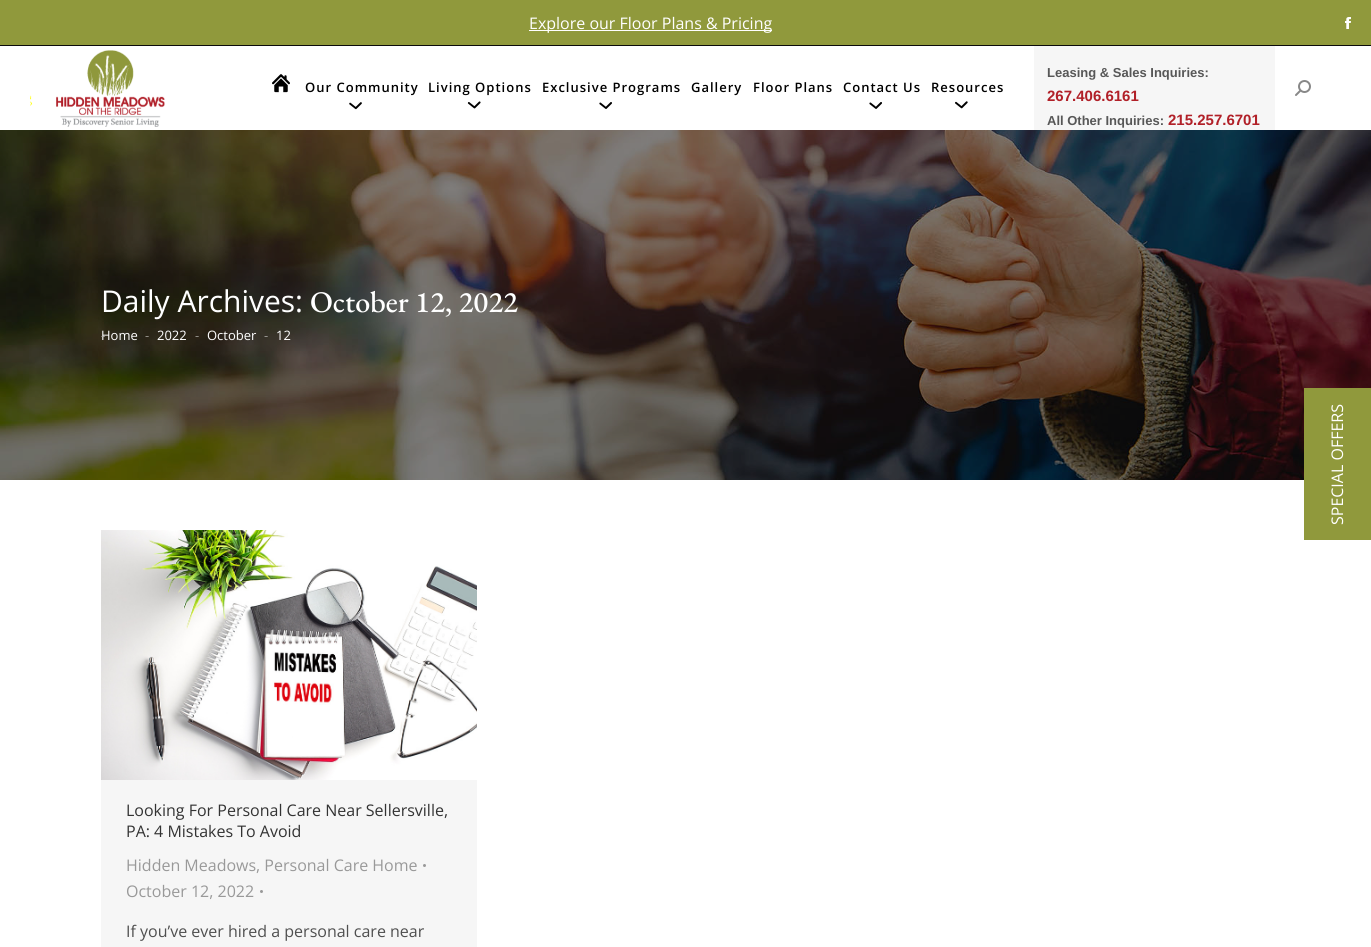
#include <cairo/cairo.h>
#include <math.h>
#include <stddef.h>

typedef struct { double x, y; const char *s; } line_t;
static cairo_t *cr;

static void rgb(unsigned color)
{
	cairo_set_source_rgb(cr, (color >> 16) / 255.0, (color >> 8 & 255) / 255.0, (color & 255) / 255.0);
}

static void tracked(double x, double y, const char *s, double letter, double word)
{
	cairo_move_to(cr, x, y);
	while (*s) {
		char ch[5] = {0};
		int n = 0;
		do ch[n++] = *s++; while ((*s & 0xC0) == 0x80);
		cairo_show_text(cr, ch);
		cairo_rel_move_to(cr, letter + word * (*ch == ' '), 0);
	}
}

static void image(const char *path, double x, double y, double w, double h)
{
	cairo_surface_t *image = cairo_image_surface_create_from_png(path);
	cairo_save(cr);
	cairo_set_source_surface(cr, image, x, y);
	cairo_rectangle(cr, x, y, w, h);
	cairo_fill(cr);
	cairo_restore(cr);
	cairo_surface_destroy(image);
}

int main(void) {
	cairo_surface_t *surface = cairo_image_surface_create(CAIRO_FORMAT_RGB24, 1371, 947);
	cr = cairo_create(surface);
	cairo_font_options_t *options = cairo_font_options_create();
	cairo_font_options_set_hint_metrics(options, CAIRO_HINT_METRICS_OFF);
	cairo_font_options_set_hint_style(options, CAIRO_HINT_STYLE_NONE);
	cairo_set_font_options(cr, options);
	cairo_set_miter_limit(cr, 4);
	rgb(0xffffff);
	cairo_paint(cr);
	rgb(0x90993c);
	cairo_rectangle(cr, 0, 0, 1371, 45);
	cairo_fill(cr);
	rgb(0xffffff);
	cairo_rectangle(cr, 529, 30, 243, 1);
	cairo_fill(cr);
	image("img/1.png", 1345, 17, 6, 12);
	rgb(0x0a0a0a);
	cairo_rectangle(cr, 0, 45, 1371, 1);
	cairo_fill(cr);
	image("img/2.png", 30, 50, 135, 77);
	image("img/3.png", 272, 74, 18, 19);
	image("img/4.png", 349, 102, 13, 8);
	image("img/5.png", 467, 101, 14, 8);
	image("img/6.png", 599, 102, 13, 7);
	image("img/7.png", 869, 102, 13, 7);
	image("img/8.png", 955, 101, 13, 8);
	rgb(0xf6f6f6);
	cairo_rectangle(cr, 1034, 46, 241, 84);
	cairo_fill(cr);
	image("img/9.png", 1295, 80, 16, 16);
	image("img/10.png", 0, 130, 1371, 350);
	rgb(0x90993c);
	cairo_rectangle(cr, 1304, 388, 67, 152);
	cairo_fill(cr);
	rgb(0xf6f6f6);
	cairo_rectangle(cr, 101, 780, 376, 167);
	cairo_fill(cr);
	image("img/11.png", 101, 530, 376, 250);
	rgb(0x999999);
	cairo_arc(cr, 424.5, 865.5, 1.5, 0, 2 * M_PI);
	cairo_fill(cr);
	cairo_arc(cr, 261.5, 891.5, 1.5, 0, 2 * M_PI);
	cairo_fill(cr);
	cairo_select_font_face(cr, "Open Sans", CAIRO_FONT_SLANT_NORMAL, CAIRO_FONT_WEIGHT_NORMAL);
	cairo_set_font_size(cr, 16);
	rgb(0xffffff);
	cairo_move_to(cr, 529, 29);
	cairo_show_text(cr, "Explore our Floor Plans & Pricing");
	cairo_select_font_face(cr, "Open Sans SemiBold", CAIRO_FONT_SLANT_NORMAL, CAIRO_FONT_WEIGHT_NORMAL);
	cairo_set_font_size(cr, 13);
	rgb(0x000000);
	{
		static const line_t items[] = {
			{305, 92, "Our Community"},
			{428, 92, "Living Options"},
			{542, 92, "Exclusive Programs"},
			{691, 92, "Gallery"},
			{753, 92, "Floor Plans"},
			{843, 92, "Contact Us"},
			{931, 92, "Resources"},
		};
		for (size_t i = 0; i < sizeof items / sizeof *items; i++) {
			tracked(items[i].x, items[i].y, items[i].s, 1, 0);
		}
	}
	cairo_select_font_face(cr, "Liberation Sans", CAIRO_FONT_SLANT_NORMAL, CAIRO_FONT_WEIGHT_BOLD);
	rgb(0x575757);
	cairo_move_to(cr, 1047, 77);
	cairo_show_text(cr, "Leasing & Sales Inquiries:");
	cairo_set_font_size(cr, 15);
	rgb(0xb12028);
	cairo_move_to(cr, 1047, 101);
	cairo_show_text(cr, "267.406.6161");
	cairo_set_font_size(cr, 13);
	rgb(0x575757);
	cairo_move_to(cr, 1047, 125);
	cairo_show_text(cr, "All Other Inquiries:");
	cairo_set_font_size(cr, 15);
	rgb(0xb12028);
	cairo_move_to(cr, 1168, 125);
	cairo_show_text(cr, "215.257.6701");
	cairo_select_font_face(cr, "Open Sans", CAIRO_FONT_SLANT_NORMAL, CAIRO_FONT_WEIGHT_NORMAL);
	cairo_set_font_size(cr, 30);
	rgb(0xffffff);
	cairo_move_to(cr, 101, 312);
	cairo_show_text(cr, "Daily Archives:");
	cairo_select_font_face(cr, "EB Garamond Medium", CAIRO_FONT_SLANT_NORMAL, CAIRO_FONT_WEIGHT_NORMAL);
	cairo_move_to(cr, 310, 312);
	cairo_show_text(cr, "October 12, 2022");
	cairo_select_font_face(cr, "Open Sans", CAIRO_FONT_SLANT_NORMAL, CAIRO_FONT_WEIGHT_NORMAL);
	cairo_set_font_size(cr, 13);
	cairo_move_to(cr, 101, 340);
	cairo_show_text(cr, "Home");
	rgb(0xb4b2ab);
	cairo_move_to(cr, 101, 340);
	cairo_show_text(cr, "-");
	rgb(0x94928b);
	cairo_move_to(cr, 145, 340);
	cairo_show_text(cr, "-");
	rgb(0xffffff);
	cairo_move_to(cr, 157, 340);
	cairo_show_text(cr, "2022");
	rgb(0x94928b);
	cairo_move_to(cr, 195, 340);
	cairo_show_text(cr, "-");
	rgb(0xffffff);
	cairo_move_to(cr, 207, 340);
	cairo_show_text(cr, "October");
	rgb(0x9b9993);
	cairo_move_to(cr, 264, 340);
	cairo_show_text(cr, "-");
	rgb(0xffffff);
	cairo_move_to(cr, 276, 340);
	cairo_show_text(cr, "12");
	cairo_set_font_size(cr, 16);
	cairo_save(cr);
	cairo_translate(cr, 1343, 525);
	cairo_rotate(cr, -90 * M_PI / 180);
	cairo_move_to(cr, 0, 0);
	cairo_show_text(cr, "SPECIAL OFFERS");
	cairo_restore(cr);
	rgb(0x333333);
	cairo_move_to(cr, 126, 816);
	cairo_show_text(cr, "Looking For Personal Care Near Sellersville,");
	cairo_move_to(cr, 126, 837);
	cairo_show_text(cr, "PA: 4 Mistakes To Avoid");
	rgb(0x999999);
	cairo_move_to(cr, 126, 871);
	cairo_show_text(cr, "Hidden Meadows, Personal Care Home");
	cairo_move_to(cr, 126, 897);
	cairo_show_text(cr, "October 12, 2022");
	rgb(0x4f4f4f);
	cairo_move_to(cr, 126, 937);
	cairo_show_text(cr, "If you’ve ever hired a personal care near");
	cairo_surface_write_to_png(surface, "page.png");
	cairo_font_options_destroy(options);
	cairo_destroy(cr);
	cairo_surface_destroy(surface);
	return 0;
}
